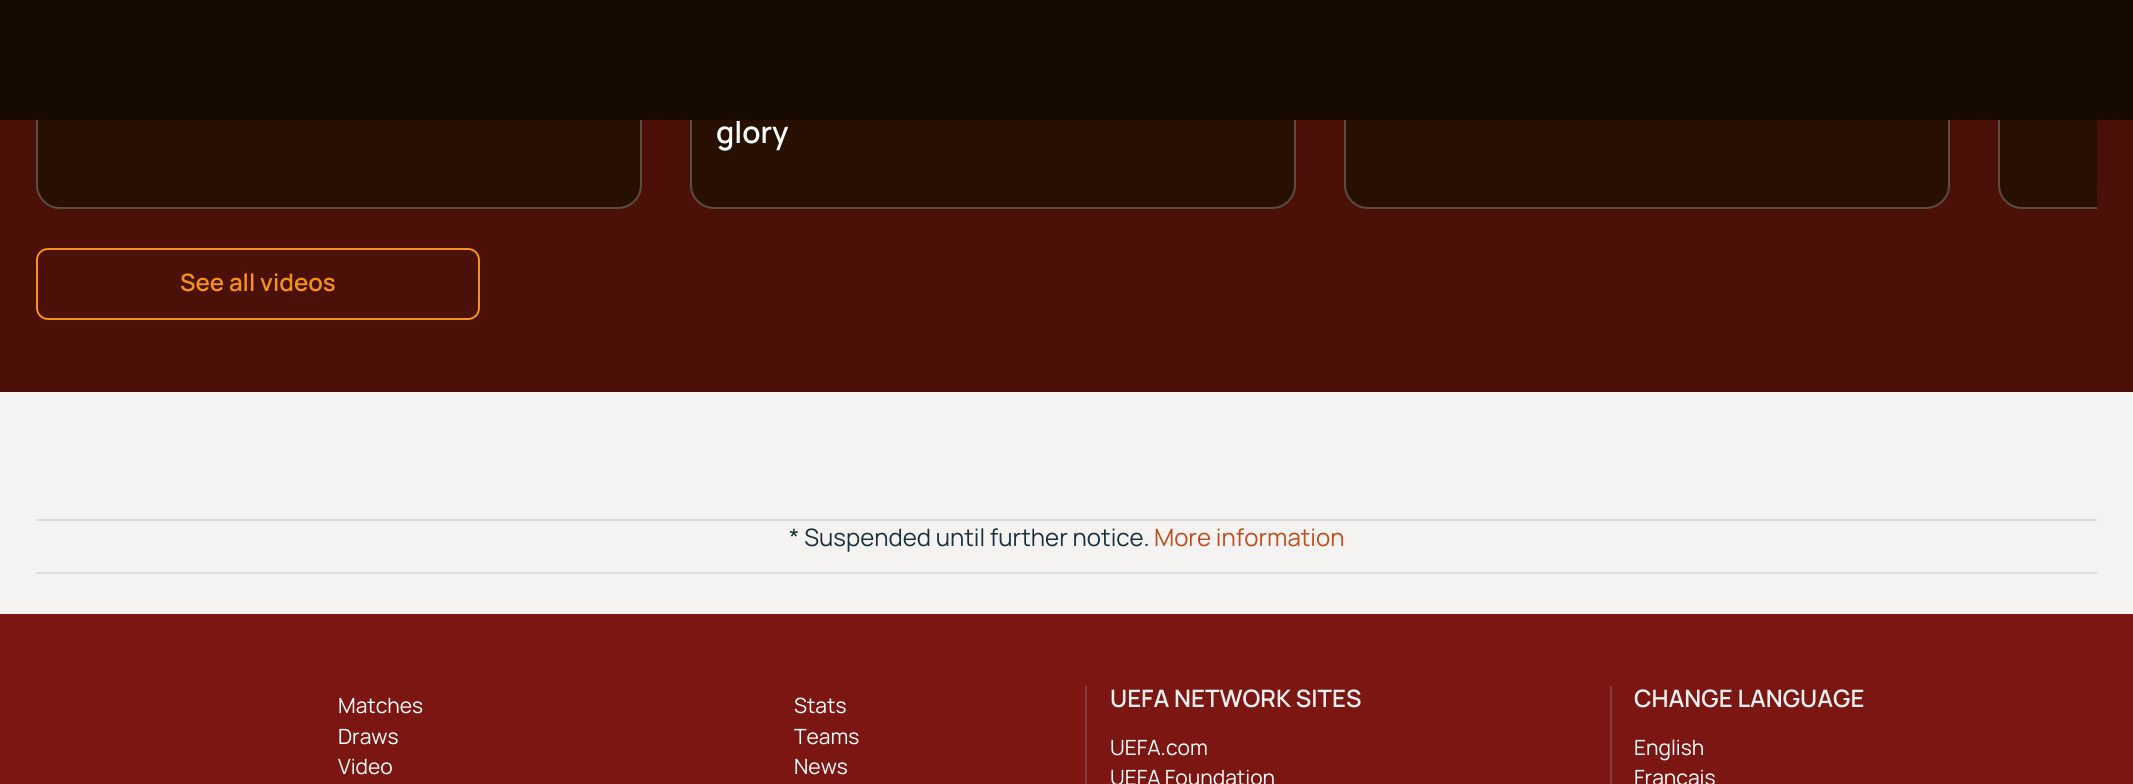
#include <cairo/cairo.h>
#include <math.h>
#include <stddef.h>

typedef struct { double x, y; const char *s; } line_t;
typedef struct { double x, y, w, h; unsigned color; } box_t;
static cairo_t *cr;

static void rgb(unsigned color)
{
	cairo_set_source_rgb(cr, (color >> 16) / 255.0, (color >> 8 & 255) / 255.0, (color & 255) / 255.0);
}

static void rrect(double x, double y, double w, double h, double r)
{
	cairo_new_sub_path(cr);
	cairo_arc(cr, x + w - r, y + h - r, r, 0, M_PI / 2);
	cairo_arc(cr, x + r, y + h - r, r, M_PI / 2, M_PI);
	cairo_arc(cr, x + r, y + r, r, M_PI, 1.5 * M_PI);
	cairo_arc(cr, x + w - r, y + r, r, 1.5 * M_PI, 2 * M_PI);
	cairo_close_path(cr);
}

int main(void) {
	cairo_surface_t *surface = cairo_image_surface_create(CAIRO_FORMAT_RGB24, 2133, 784);
	cr = cairo_create(surface);
	cairo_font_options_t *options = cairo_font_options_create();
	cairo_font_options_set_hint_metrics(options, CAIRO_HINT_METRICS_OFF);
	cairo_font_options_set_hint_style(options, CAIRO_HINT_STYLE_NONE);
	cairo_set_font_options(cr, options);
	cairo_set_miter_limit(cr, 4);
	cairo_pattern_t *gradient;
	rgb(0xffffff);
	cairo_paint(cr);
	gradient = cairo_pattern_create_linear(1067, -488, 1067, 392);
	cairo_pattern_add_color_stop_rgba(gradient, 0, 0.286, 0.059, 0.027, 1);
	cairo_pattern_add_color_stop_rgba(gradient, 1, 0.294, 0.063, 0.031, 1);
	cairo_set_source(cr, gradient);
	cairo_pattern_destroy(gradient);
	cairo_rectangle(cr, 0, 120, 2133, 272);
	cairo_fill(cr);
	rgb(0x271001);
	rrect(36, -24, 606, 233, 24);
	cairo_fill(cr);
	rrect(37, -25, 604, 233, 23);
	cairo_set_source_rgba(cr, 1, 1, 1, 0.25);
	cairo_stroke(cr);
	rgb(0x271001);
	rrect(690, -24, 606, 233, 24);
	cairo_fill(cr);
	rrect(691, -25, 604, 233, 23);
	cairo_set_source_rgba(cr, 1, 1, 1, 0.25);
	cairo_stroke(cr);
	rgb(0x271001);
	rrect(1344, -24, 606, 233, 24);
	cairo_fill(cr);
	rrect(1345, -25, 604, 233, 23);
	cairo_set_source_rgba(cr, 1, 1, 1, 0.25);
	cairo_stroke(cr);
	rgb(0x271001);
	cairo_new_path(cr);
	cairo_move_to(cr, 2022, -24);
	cairo_line_to(cr, 2097, -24);
	cairo_line_to(cr, 2097, 209);
	cairo_line_to(cr, 2022, 209);
	cairo_curve_to(cr, 2008.5, 209, 1998, 198.5, 1998, 185);
	cairo_line_to(cr, 1998, 0);
	cairo_curve_to(cr, 1998, -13.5, 2008.5, -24, 2022, -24);
	cairo_close_path(cr);
	cairo_fill(cr);
	cairo_save(cr);
	cairo_rectangle(cr, 36, 0, 2061, 212);
	cairo_clip(cr);
	rrect(1999, -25, 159, 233, 23);
	cairo_set_source_rgba(cr, 1, 1, 1, 0.25);
	cairo_stroke(cr);
	cairo_restore(cr);
	rgb(0x160a01);
	cairo_rectangle(cr, 0, 0, 2133, 120);
	cairo_fill(cr);
	rrect(37, 249, 442, 70, 11);
	rgb(0xf39118);
	cairo_stroke(cr);
	{
		static const box_t items[] = {
			{0, 392, 2133, 222, 0xf4f3f2},
			{36, 519, 2061, 2, 0xdddddd},
			{36, 572, 2061, 2, 0xdddddd},
			{0, 614, 2133, 170, 0x7c1613},
			{1085, 686, 2, 98, 0x853d3f},
			{1610, 686, 2, 98, 0x853d3f},
		};
		for (size_t i = 0; i < sizeof items / sizeof *items; i++) {
			rgb(items[i].color);
			cairo_rectangle(cr, items[i].x, items[i].y, items[i].w, items[i].h);
			cairo_fill(cr);
		}
	}
	cairo_select_font_face(cr, "Manrope SemiBold", CAIRO_FONT_SLANT_NORMAL, CAIRO_FONT_WEIGHT_NORMAL);
	cairo_set_font_size(cr, 30);
	rgb(0xffffff);
	cairo_move_to(cr, 716, 143);
	cairo_show_text(cr, "glory");
	cairo_set_font_size(cr, 24);
	rgb(0xf39118);
	cairo_move_to(cr, 180, 291);
	cairo_show_text(cr, "See all videos");
	cairo_select_font_face(cr, "Manrope", CAIRO_FONT_SLANT_NORMAL, CAIRO_FONT_WEIGHT_NORMAL);
	rgb(0x1a313c);
	cairo_move_to(cr, 789, 546);
	cairo_show_text(cr, "* Suspended until further notice.");
	rgb(0xc04c1d);
	cairo_move_to(cr, 1154, 546);
	cairo_show_text(cr, "More information");
	cairo_set_font_size(cr, 21);
	rgb(0xffffff);
	{
		static const line_t items[] = {
			{338, 713, "Matches"},
			{338, 744, "Draws"},
			{338, 774, "Video"},
			{794, 713, "Stats"},
			{794, 744, "Teams"},
			{794, 774, "News"},
		};
		for (size_t i = 0; i < sizeof items / sizeof *items; i++) {
			cairo_move_to(cr, items[i].x, items[i].y);
			cairo_show_text(cr, items[i].s);
		}
	}
	cairo_select_font_face(cr, "Manrope SemiBold", CAIRO_FONT_SLANT_NORMAL, CAIRO_FONT_WEIGHT_NORMAL);
	cairo_set_font_size(cr, 24);
	rgb(0xefefef);
	cairo_move_to(cr, 1110, 707);
	cairo_show_text(cr, "UEFA NETWORK SITES");
	cairo_select_font_face(cr, "Manrope", CAIRO_FONT_SLANT_NORMAL, CAIRO_FONT_WEIGHT_NORMAL);
	cairo_set_font_size(cr, 21);
	rgb(0xffffff);
	cairo_move_to(cr, 1110, 755);
	cairo_show_text(cr, "UEFA.com");
	cairo_move_to(cr, 1110, 785);
	cairo_show_text(cr, "UEFA Foundation");
	cairo_select_font_face(cr, "Manrope SemiBold", CAIRO_FONT_SLANT_NORMAL, CAIRO_FONT_WEIGHT_NORMAL);
	cairo_set_font_size(cr, 24);
	rgb(0xefefef);
	cairo_move_to(cr, 1634, 707);
	cairo_show_text(cr, "CHANGE LANGUAGE");
	cairo_select_font_face(cr, "Manrope", CAIRO_FONT_SLANT_NORMAL, CAIRO_FONT_WEIGHT_NORMAL);
	cairo_set_font_size(cr, 21);
	rgb(0xffffff);
	cairo_move_to(cr, 1634, 755);
	cairo_show_text(cr, "English");
	cairo_move_to(cr, 1634, 785);
	cairo_show_text(cr, "Français");
	cairo_surface_write_to_png(surface, "page.png");
	cairo_font_options_destroy(options);
	cairo_destroy(cr);
	cairo_surface_destroy(surface);
	return 0;
}
